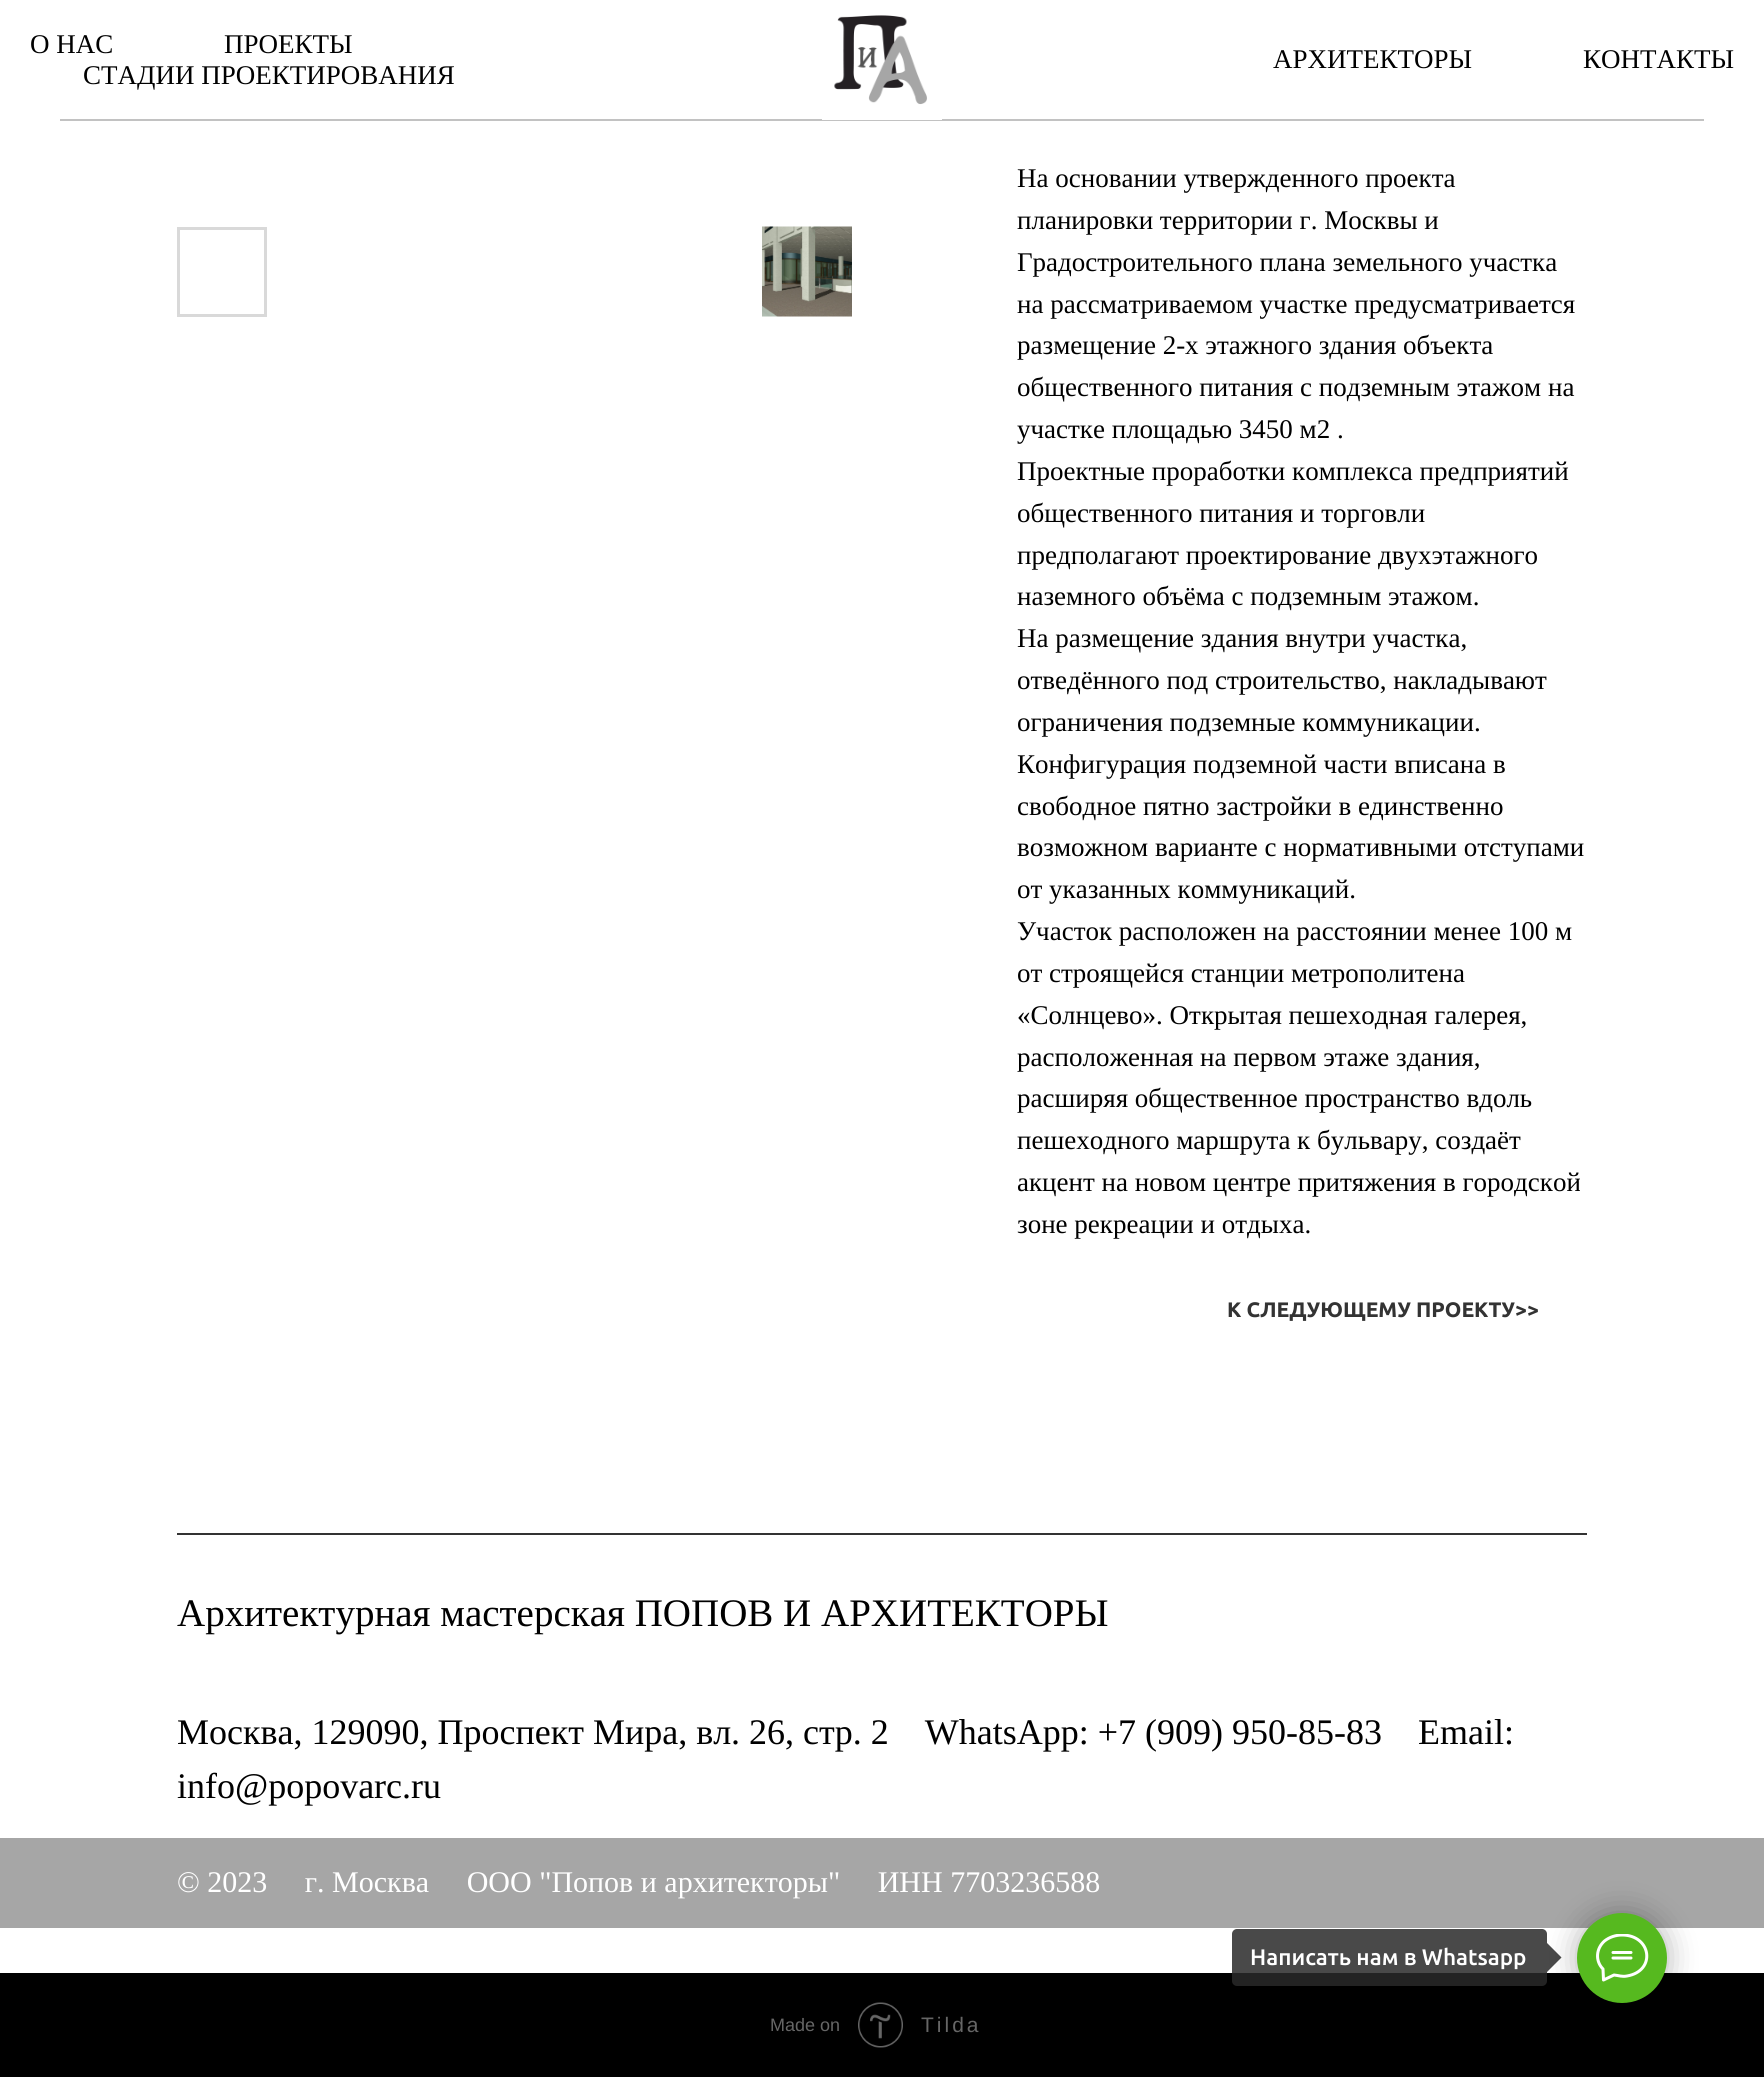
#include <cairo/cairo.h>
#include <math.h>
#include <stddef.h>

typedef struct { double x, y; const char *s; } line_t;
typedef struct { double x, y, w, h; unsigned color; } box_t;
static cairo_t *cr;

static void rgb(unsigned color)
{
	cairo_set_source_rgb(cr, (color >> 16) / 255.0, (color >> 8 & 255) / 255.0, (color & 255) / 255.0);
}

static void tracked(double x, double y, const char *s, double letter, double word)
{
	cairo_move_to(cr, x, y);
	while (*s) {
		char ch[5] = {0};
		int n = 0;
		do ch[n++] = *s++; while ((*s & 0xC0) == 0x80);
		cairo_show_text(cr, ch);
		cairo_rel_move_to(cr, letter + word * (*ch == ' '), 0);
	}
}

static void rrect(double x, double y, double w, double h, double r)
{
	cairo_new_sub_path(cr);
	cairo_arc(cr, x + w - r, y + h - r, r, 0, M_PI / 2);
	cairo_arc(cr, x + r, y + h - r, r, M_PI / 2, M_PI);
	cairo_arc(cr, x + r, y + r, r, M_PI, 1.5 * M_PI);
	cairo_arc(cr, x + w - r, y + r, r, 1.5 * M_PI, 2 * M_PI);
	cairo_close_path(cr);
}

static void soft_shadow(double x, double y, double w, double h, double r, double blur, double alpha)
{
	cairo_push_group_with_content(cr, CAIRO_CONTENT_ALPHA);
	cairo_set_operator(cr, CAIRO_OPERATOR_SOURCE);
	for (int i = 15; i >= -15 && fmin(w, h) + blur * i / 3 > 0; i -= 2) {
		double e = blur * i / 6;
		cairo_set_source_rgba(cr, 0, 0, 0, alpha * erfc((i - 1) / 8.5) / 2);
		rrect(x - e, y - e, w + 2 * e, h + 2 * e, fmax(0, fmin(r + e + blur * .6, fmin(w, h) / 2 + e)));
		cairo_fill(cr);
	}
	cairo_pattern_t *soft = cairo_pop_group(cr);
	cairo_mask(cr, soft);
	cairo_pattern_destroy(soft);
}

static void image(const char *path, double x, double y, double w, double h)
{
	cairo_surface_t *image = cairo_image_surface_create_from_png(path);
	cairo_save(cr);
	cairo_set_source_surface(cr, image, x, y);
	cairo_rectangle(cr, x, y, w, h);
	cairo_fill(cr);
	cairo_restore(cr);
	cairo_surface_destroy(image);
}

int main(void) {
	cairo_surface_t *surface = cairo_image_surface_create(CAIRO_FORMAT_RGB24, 1764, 2077);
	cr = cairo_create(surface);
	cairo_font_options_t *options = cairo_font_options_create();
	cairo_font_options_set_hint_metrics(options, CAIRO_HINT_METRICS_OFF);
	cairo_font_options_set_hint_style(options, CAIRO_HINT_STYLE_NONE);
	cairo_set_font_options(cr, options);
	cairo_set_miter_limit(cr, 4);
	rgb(0xffffff);
	cairo_paint(cr);
	rgb(0xc2c2c2);
	cairo_rectangle(cr, 60, 119, 1644, 2);
	cairo_fill(cr);
	image("img/1.png", 822, 15, 120, 105);
	cairo_rectangle(cr, 178.5, 228.5, 87, 87);
	rgb(0xd9d9d9);
	cairo_set_line_width(cr, 3);
	cairo_stroke(cr);
	image("img/2.png", 762, 226, 90, 91);
	{
		static const box_t items[] = {
			{177, 1533, 1410, 2, 0x333333},
			{0, 1838, 1764, 90, 0xa6a6a6},
			{0, 1973, 1764, 104, 0x000000},
		};
		for (size_t i = 0; i < sizeof items / sizeof *items; i++) {
			rgb(items[i].color);
			cairo_rectangle(cr, items[i].x, items[i].y, items[i].w, items[i].h);
			cairo_fill(cr);
		}
	}
	cairo_set_source_rgba(cr, 0.161, 0.161, 0.161, 0.85);
	rrect(1232, 1929, 315, 57, 5);
	cairo_fill(cr);
	rgb(0x494949);
	cairo_new_path(cr);
	cairo_move_to(cr, 1546.5, 1972.5);
	cairo_line_to(cr, 1546.5, 1942.5);
	cairo_line_to(cr, 1561.5, 1957.5);
	cairo_close_path(cr);
	cairo_fill(cr);
	rgb(0x000000);
	soft_shadow(1577, 1913, 90, 90, 45, 15, 0.3);
	rgb(0x56b91f);
	cairo_arc(cr, 1622, 1958, 45, 0, 2 * M_PI);
	cairo_fill(cr);
	cairo_save(cr);
	cairo_rectangle(cr, 1596, 1934, 53, 48);
	cairo_clip(cr);
	cairo_new_path(cr);
	cairo_move_to(cr, 1613, 1952.5);
	cairo_line_to(cr, 1631, 1952.5);
	cairo_move_to(cr, 1613, 1958);
	cairo_line_to(cr, 1631, 1958);
	cairo_move_to(cr, 1603, 1969);
	cairo_curve_to(cr, 1595, 1961, 1596, 1948.5, 1604.5, 1941);
	cairo_curve_to(cr, 1609.5, 1937, 1616, 1935, 1622, 1935);
	cairo_curve_to(cr, 1651.5, 1935, 1656.5, 1971, 1627, 1976);
	cairo_curve_to(cr, 1622, 1977, 1619, 1975.5, 1614, 1975);
	cairo_line_to(cr, 1603.5, 1980);
	cairo_close_path(cr);
	rgb(0xffffff);
	cairo_set_line_cap(cr, CAIRO_LINE_CAP_ROUND);
	cairo_set_line_join(cr, CAIRO_LINE_JOIN_ROUND);
	cairo_stroke(cr);
	cairo_restore(cr);
	image("img/3.png", 858, 2002, 45, 46);
	cairo_select_font_face(cr, "Liberation Serif", CAIRO_FONT_SLANT_NORMAL, CAIRO_FONT_WEIGHT_NORMAL);
	cairo_set_font_size(cr, 27);
	rgb(0x000000);
	{
		static const line_t items[] = {
			{30, 53, "О НАС"},
			{224, 53, "ПРОЕКТЫ"},
			{83, 84, "СТАДИИ ПРОЕКТИРОВАНИЯ"},
			{1273, 68, "АРХИТЕКТОРЫ"},
			{1583, 68, "КОНТАКТЫ"},
			{1017, 187, "На основании утвержденного проекта"},
			{1017, 229, "планировки территории г. Москвы и"},
			{1017, 271, "Градостроительного плана земельного участка"},
			{1017, 313, "на рассматриваемом участке предусматривается"},
			{1017, 354, "размещение 2-х этажного здания объекта"},
			{1017, 396, "общественного питания с подземным этажом на"},
			{1017, 438, "участке площадью 3450 м2 ."},
			{1017, 480, "Проектные проработки комплекса предприятий"},
			{1017, 522, "общественного питания и торговли"},
			{1017, 564, "предполагают проектирование двухэтажного"},
			{1017, 605, "наземного объёма с подземным этажом."},
			{1017, 647, "На размещение здания внутри участка,"},
			{1017, 689, "отведённого под строительство, накладывают"},
			{1017, 731, "ограничения подземные коммуникации."},
			{1017, 773, "Конфигурация подземной части вписана в"},
			{1017, 815, "свободное пятно застройки в единственно"},
			{1017, 856, "возможном варианте с нормативными отступами"},
			{1017, 898, "от указанных коммуникаций."},
			{1017, 940, "Участок расположен на расстоянии менее 100 м"},
			{1017, 982, "от строящейся станции метрополитена"},
			{1017, 1024, "«Солнцево». Открытая пешеходная галерея,"},
			{1017, 1066, "расположенная на первом этаже здания,"},
			{1017, 1107, "расширяя общественное пространство вдоль"},
			{1017, 1149, "пешеходного маршрута к бульвару, создаёт"},
			{1017, 1191, "акцент на новом центре притяжения в городской"},
			{1017, 1233, "зоне рекреации и отдыха."},
		};
		for (size_t i = 0; i < sizeof items / sizeof *items; i++) {
			cairo_move_to(cr, items[i].x, items[i].y);
			cairo_show_text(cr, items[i].s);
		}
	}
	cairo_select_font_face(cr, "Ubuntu", CAIRO_FONT_SLANT_NORMAL, CAIRO_FONT_WEIGHT_BOLD);
	cairo_set_font_size(cr, 21);
	rgb(0x333333);
	cairo_move_to(cr, 1227, 1317);
	cairo_show_text(cr, "К СЛЕДУЮЩЕМУ ПРОЕКТУ>>");
	cairo_select_font_face(cr, "Liberation Serif", CAIRO_FONT_SLANT_NORMAL, CAIRO_FONT_WEIGHT_NORMAL);
	cairo_set_font_size(cr, 39);
	rgb(0x000000);
	cairo_move_to(cr, 177, 1626);
	cairo_show_text(cr, "Архитектурная мастерская ПОПОВ И АРХИТЕКТОРЫ");
	cairo_set_font_size(cr, 36);
	cairo_move_to(cr, 177, 1744);
	cairo_show_text(cr, "Москва, 129090, Проспект Мира, вл. 26, стр. 2    WhatsApp: +7 (909) 950-85-83    Email:");
	cairo_move_to(cr, 177, 1798);
	cairo_show_text(cr, "info@popovarc.ru");
	cairo_set_font_size(cr, 30);
	rgb(0xffffff);
	cairo_move_to(cr, 177, 1892);
	cairo_show_text(cr, "© 2023     г. Москва     ООО \"Попов и архитекторы\"     ИНН 7703236588");
	cairo_select_font_face(cr, "Ubuntu Medium", CAIRO_FONT_SLANT_NORMAL, CAIRO_FONT_WEIGHT_NORMAL);
	cairo_set_font_size(cr, 22.5);
	cairo_move_to(cr, 1250, 1965);
	cairo_show_text(cr, "Написать нам в Whatsapp");
	cairo_select_font_face(cr, "Liberation Sans", CAIRO_FONT_SLANT_NORMAL, CAIRO_FONT_WEIGHT_NORMAL);
	cairo_set_font_size(cr, 18);
	rgb(0x666666);
	cairo_move_to(cr, 770, 2031);
	cairo_show_text(cr, "Made on");
	cairo_set_font_size(cr, 21);
	tracked(921, 2032, "Tilda", 3, 0);
	cairo_surface_write_to_png(surface, "page.png");
	cairo_font_options_destroy(options);
	cairo_destroy(cr);
	cairo_surface_destroy(surface);
	return 0;
}
